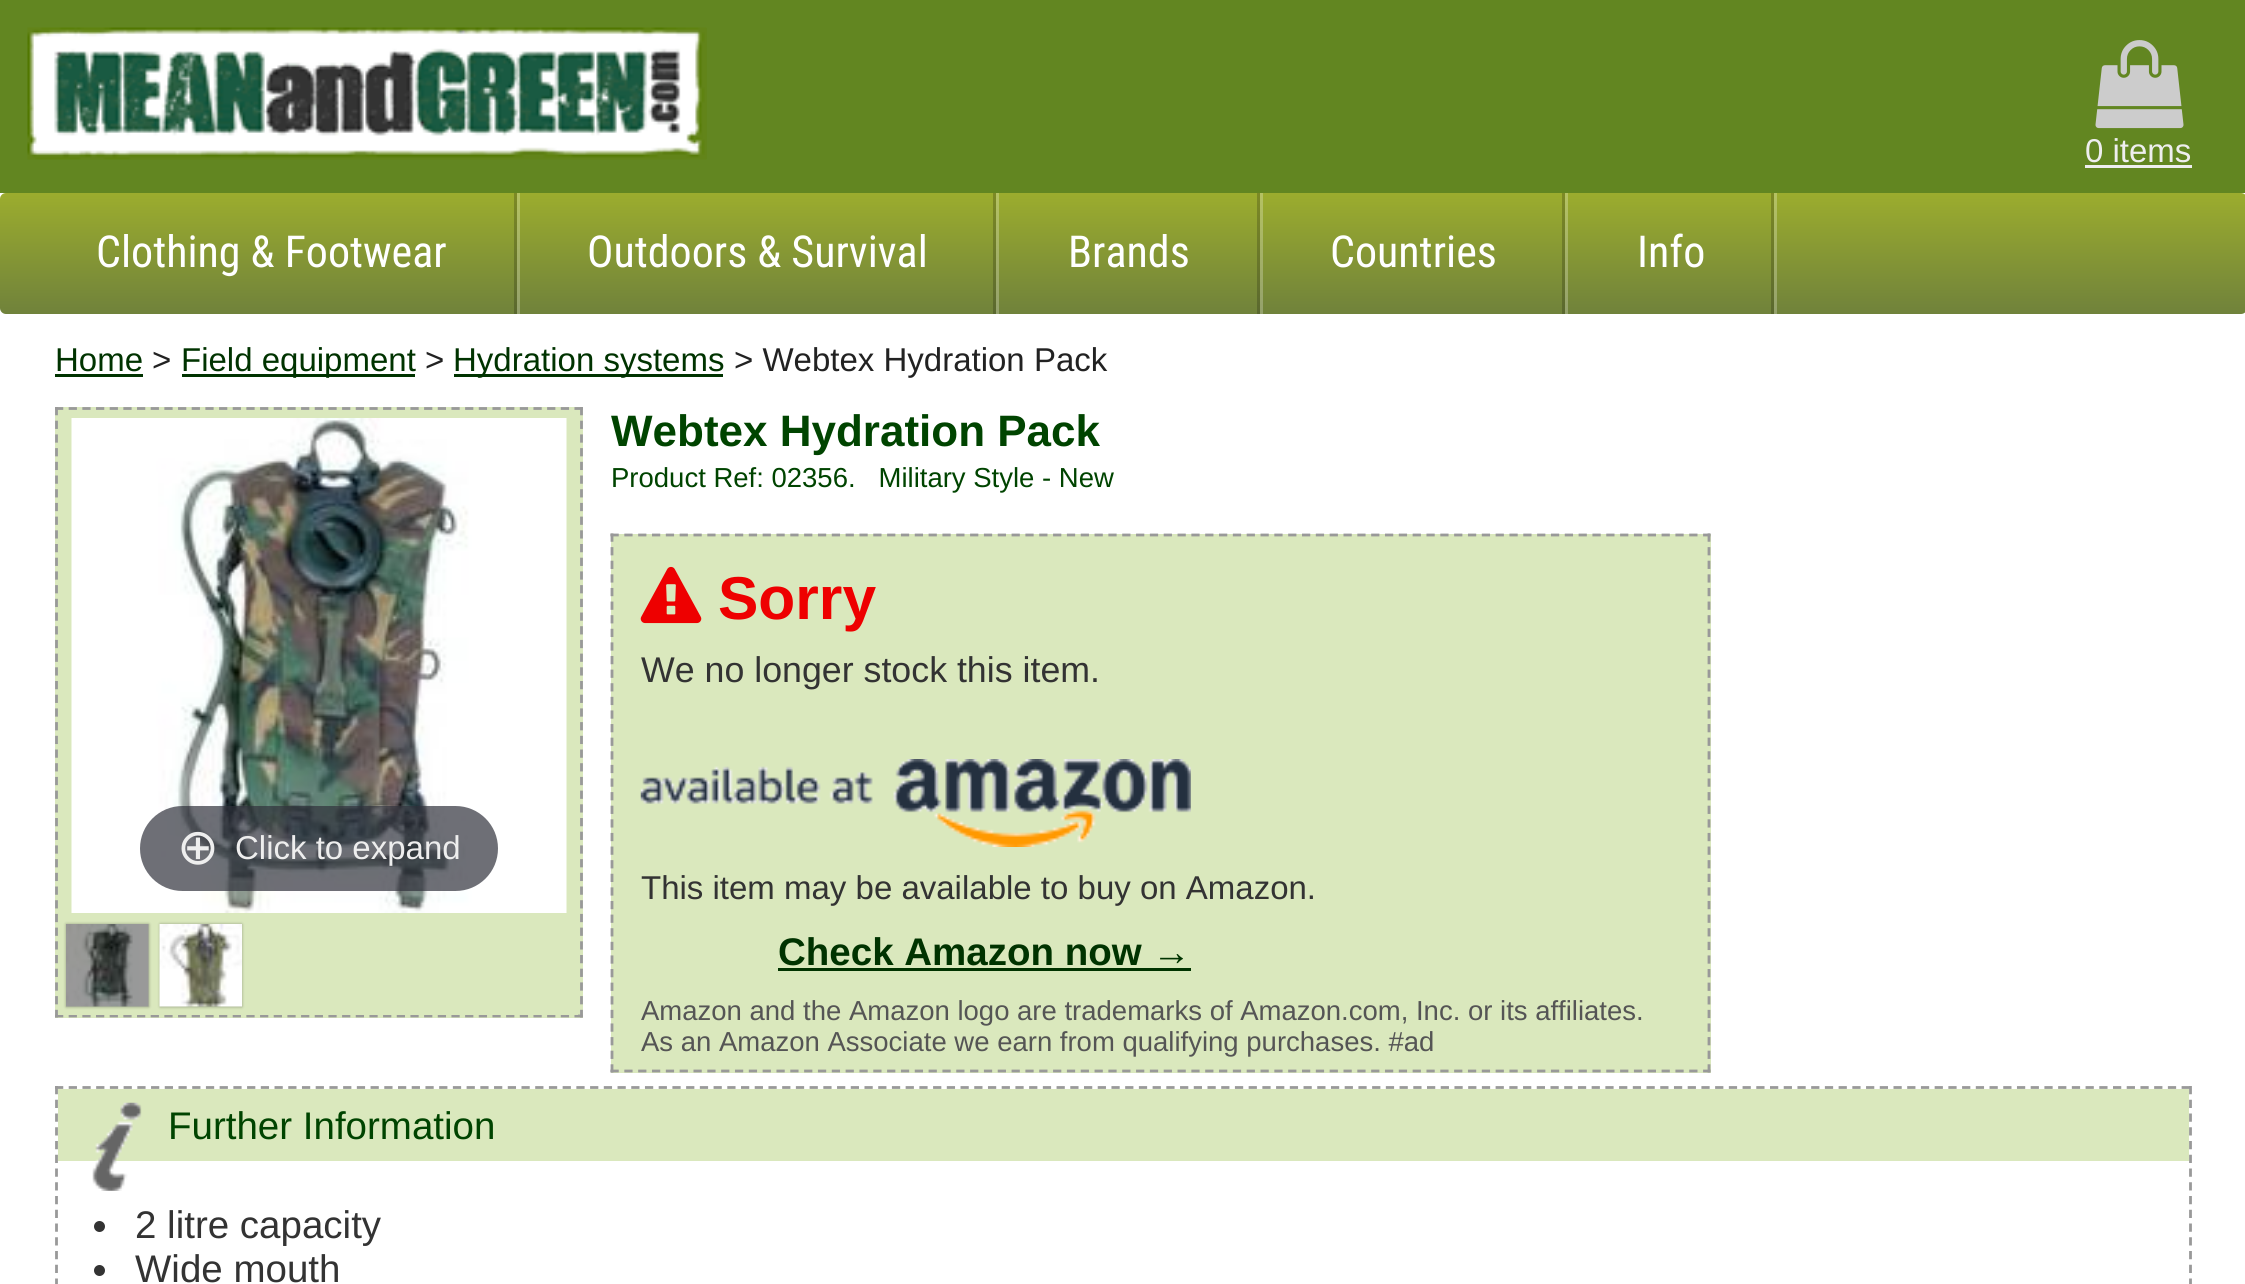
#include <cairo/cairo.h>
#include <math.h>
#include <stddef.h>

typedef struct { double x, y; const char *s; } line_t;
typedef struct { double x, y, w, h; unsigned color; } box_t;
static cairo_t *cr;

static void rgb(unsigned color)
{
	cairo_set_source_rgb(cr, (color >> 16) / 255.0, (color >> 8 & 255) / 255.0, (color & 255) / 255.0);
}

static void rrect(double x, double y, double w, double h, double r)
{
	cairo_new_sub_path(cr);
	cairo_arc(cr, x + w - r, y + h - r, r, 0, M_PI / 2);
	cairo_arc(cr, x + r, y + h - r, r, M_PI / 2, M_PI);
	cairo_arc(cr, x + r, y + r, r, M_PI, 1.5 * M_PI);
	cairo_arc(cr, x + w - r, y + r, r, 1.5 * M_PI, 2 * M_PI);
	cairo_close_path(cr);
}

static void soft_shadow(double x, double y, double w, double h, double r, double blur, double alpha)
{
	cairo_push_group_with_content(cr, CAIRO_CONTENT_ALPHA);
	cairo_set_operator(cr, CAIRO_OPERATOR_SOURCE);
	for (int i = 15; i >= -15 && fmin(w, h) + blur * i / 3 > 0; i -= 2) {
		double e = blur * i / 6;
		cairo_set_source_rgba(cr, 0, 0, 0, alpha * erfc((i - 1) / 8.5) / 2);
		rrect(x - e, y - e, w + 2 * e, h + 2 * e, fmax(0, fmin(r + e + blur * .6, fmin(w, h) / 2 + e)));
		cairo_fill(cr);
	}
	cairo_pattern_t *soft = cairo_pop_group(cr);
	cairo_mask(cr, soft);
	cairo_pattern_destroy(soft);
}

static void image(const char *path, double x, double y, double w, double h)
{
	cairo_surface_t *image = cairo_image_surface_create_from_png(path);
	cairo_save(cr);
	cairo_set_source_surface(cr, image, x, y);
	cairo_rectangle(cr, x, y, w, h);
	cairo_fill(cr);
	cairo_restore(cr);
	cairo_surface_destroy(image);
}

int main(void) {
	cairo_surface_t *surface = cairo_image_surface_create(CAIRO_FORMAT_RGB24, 2245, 1284);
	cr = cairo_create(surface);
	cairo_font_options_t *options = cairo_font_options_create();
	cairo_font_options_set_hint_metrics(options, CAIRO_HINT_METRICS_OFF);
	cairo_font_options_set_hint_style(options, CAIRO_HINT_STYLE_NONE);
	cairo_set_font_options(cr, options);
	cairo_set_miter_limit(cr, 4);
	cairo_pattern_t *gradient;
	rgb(0x628621);
	cairo_paint(cr);
	image("img/1.png", 27, 27, 680, 133);
	image("img/2.png", 2095, 40, 89, 89);
	rgb(0xeeeeee);
	cairo_rectangle(cr, 2085, 165, 107, 3);
	cairo_fill(cr);
	rgb(0xffffff);
	cairo_rectangle(cr, 0, 193, 2245, 1091);
	cairo_fill(cr);
	gradient = cairo_pattern_create_linear(1123, 192, 1123, 314);
	cairo_pattern_add_color_stop_rgba(gradient, 0, 0.612, 0.678, 0.18, 1);
	cairo_pattern_add_color_stop_rgba(gradient, 1, 0.439, 0.51, 0.231, 1);
	cairo_set_source(cr, gradient);
	cairo_pattern_destroy(gradient);
	rrect(0, 193, 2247, 121, 6);
	cairo_fill(cr);
	gradient = cairo_pattern_create_linear(1123, 192, 1123, 314);
	cairo_pattern_add_color_stop_rgba(gradient, 0, 0.71, 0.761, 0.384, 1);
	cairo_pattern_add_color_stop_rgba(gradient, 1, 0.58, 0.631, 0.424, 1);
	cairo_set_source(cr, gradient);
	cairo_pattern_destroy(gradient);
	cairo_rectangle(cr, 1774, 193, 3, 121);
	cairo_fill(cr);
	gradient = cairo_pattern_create_linear(1123, 192, 1123, 314);
	cairo_pattern_add_color_stop_rgba(gradient, 0, 0.49, 0.541, 0.145, 1);
	cairo_pattern_add_color_stop_rgba(gradient, 1, 0.353, 0.408, 0.184, 1);
	cairo_set_source(cr, gradient);
	cairo_pattern_destroy(gradient);
	cairo_rectangle(cr, 1771, 193, 3, 121);
	cairo_fill(cr);
	gradient = cairo_pattern_create_linear(1123, 192, 1123, 314);
	cairo_pattern_add_color_stop_rgba(gradient, 0, 0.71, 0.761, 0.384, 1);
	cairo_pattern_add_color_stop_rgba(gradient, 1, 0.58, 0.631, 0.424, 1);
	cairo_set_source(cr, gradient);
	cairo_pattern_destroy(gradient);
	cairo_rectangle(cr, 1565, 193, 3, 121);
	cairo_fill(cr);
	gradient = cairo_pattern_create_linear(1123, 192, 1123, 314);
	cairo_pattern_add_color_stop_rgba(gradient, 0, 0.49, 0.541, 0.145, 1);
	cairo_pattern_add_color_stop_rgba(gradient, 1, 0.353, 0.408, 0.184, 1);
	cairo_set_source(cr, gradient);
	cairo_pattern_destroy(gradient);
	cairo_rectangle(cr, 1562, 193, 3, 121);
	cairo_fill(cr);
	gradient = cairo_pattern_create_linear(1123, 192, 1123, 314);
	cairo_pattern_add_color_stop_rgba(gradient, 0, 0.71, 0.761, 0.384, 1);
	cairo_pattern_add_color_stop_rgba(gradient, 1, 0.58, 0.631, 0.424, 1);
	cairo_set_source(cr, gradient);
	cairo_pattern_destroy(gradient);
	cairo_rectangle(cr, 1260, 193, 3, 121);
	cairo_fill(cr);
	gradient = cairo_pattern_create_linear(1123, 192, 1123, 314);
	cairo_pattern_add_color_stop_rgba(gradient, 0, 0.49, 0.541, 0.145, 1);
	cairo_pattern_add_color_stop_rgba(gradient, 1, 0.353, 0.408, 0.184, 1);
	cairo_set_source(cr, gradient);
	cairo_pattern_destroy(gradient);
	cairo_rectangle(cr, 1257, 193, 3, 121);
	cairo_fill(cr);
	gradient = cairo_pattern_create_linear(1123, 192, 1123, 314);
	cairo_pattern_add_color_stop_rgba(gradient, 0, 0.71, 0.761, 0.384, 1);
	cairo_pattern_add_color_stop_rgba(gradient, 1, 0.58, 0.631, 0.424, 1);
	cairo_set_source(cr, gradient);
	cairo_pattern_destroy(gradient);
	cairo_rectangle(cr, 996, 193, 3, 121);
	cairo_fill(cr);
	gradient = cairo_pattern_create_linear(1123, 192, 1123, 314);
	cairo_pattern_add_color_stop_rgba(gradient, 0, 0.49, 0.541, 0.145, 1);
	cairo_pattern_add_color_stop_rgba(gradient, 1, 0.353, 0.408, 0.184, 1);
	cairo_set_source(cr, gradient);
	cairo_pattern_destroy(gradient);
	cairo_rectangle(cr, 993, 193, 3, 121);
	cairo_fill(cr);
	gradient = cairo_pattern_create_linear(1123, 192, 1123, 314);
	cairo_pattern_add_color_stop_rgba(gradient, 0, 0.71, 0.761, 0.384, 1);
	cairo_pattern_add_color_stop_rgba(gradient, 1, 0.58, 0.631, 0.424, 1);
	cairo_set_source(cr, gradient);
	cairo_pattern_destroy(gradient);
	cairo_rectangle(cr, 517, 193, 3, 121);
	cairo_fill(cr);
	gradient = cairo_pattern_create_linear(1123, 192, 1123, 314);
	cairo_pattern_add_color_stop_rgba(gradient, 0, 0.49, 0.541, 0.145, 1);
	cairo_pattern_add_color_stop_rgba(gradient, 1, 0.353, 0.408, 0.184, 1);
	cairo_set_source(cr, gradient);
	cairo_pattern_destroy(gradient);
	cairo_rectangle(cr, 514, 193, 3, 121);
	cairo_fill(cr);
	{
		static const box_t items[] = {
			{55, 374, 88, 3, 0x003300},
			{182, 374, 233, 3, 0x003300},
			{454, 374, 269, 3, 0x003300},
			{55, 407, 528, 611, 0xdae8bd},
		};
		for (size_t i = 0; i < sizeof items / sizeof *items; i++) {
			rgb(items[i].color);
			cairo_rectangle(cr, items[i].x, items[i].y, items[i].w, items[i].h);
			cairo_fill(cr);
		}
	}
	cairo_new_path(cr);
	cairo_move_to(cr, 55, 408.5);
	cairo_line_to(cr, 583, 408.5);
	rgb(0x999999);
	cairo_set_line_width(cr, 2.8);
	cairo_set_dash(cr, (double[]){8.25, 5.42}, 2, 0);
	cairo_stroke(cr);
	cairo_new_path(cr);
	cairo_move_to(cr, 581.5, 407);
	cairo_line_to(cr, 581.5, 1017.5);
	cairo_set_dash(cr, (double[]){8.25, 5.45}, 2, 0);
	cairo_stroke(cr);
	cairo_new_path(cr);
	cairo_move_to(cr, 55, 1016);
	cairo_line_to(cr, 583, 1016);
	cairo_set_dash(cr, (double[]){8.25, 5.42}, 2, 0);
	cairo_stroke(cr);
	cairo_new_path(cr);
	cairo_move_to(cr, 56.5, 407);
	cairo_line_to(cr, 56.5, 1017.5);
	cairo_set_dash(cr, (double[]){8.25, 5.45}, 2, 0);
	cairo_stroke(cr);
	image("img/3.png", 71, 418, 496, 495);
	cairo_set_source_rgba(cr, 0.192, 0.2, 0.239, 0.7);
	rrect(140, 806, 358, 85, 42.5);
	cairo_fill(cr);
	rgb(0xdae8bd);
	cairo_rectangle(cr, 58, 1014, 520, 1);
	cairo_fill(cr);
	rgb(0x000000);
	soft_shadow(66, 924, 83, 83, 0, 1.5, 0.3);
	image("img/4.png", 66, 924, 83, 83);
	soft_shadow(160, 924, 82, 83, 0, 1.5, 0.3);
	image("img/5.png", 159, 924, 83, 83);
	rgb(0xdae8bd);
	cairo_rectangle(cr, 611, 534, 1100, 539);
	cairo_fill(cr);
	cairo_new_path(cr);
	cairo_move_to(cr, 610.5, 535);
	cairo_line_to(cr, 1710.5, 535);
	rgb(0x999999);
	cairo_set_dash(cr, (double[]){8.25, 5.58}, 2, 0);
	cairo_stroke(cr);
	cairo_new_path(cr);
	cairo_move_to(cr, 1709, 533.5);
	cairo_line_to(cr, 1709, 1072.5);
	cairo_set_dash(cr, (double[]){8.25, 5.36}, 2, 0);
	cairo_stroke(cr);
	cairo_new_path(cr);
	cairo_move_to(cr, 610.5, 1071);
	cairo_line_to(cr, 1710.5, 1071);
	cairo_set_dash(cr, (double[]){8.25, 5.58}, 2, 0);
	cairo_stroke(cr);
	cairo_new_path(cr);
	cairo_move_to(cr, 612, 533.5);
	cairo_line_to(cr, 612, 1072.5);
	cairo_set_dash(cr, (double[]){8.25, 5.36}, 2, 0);
	cairo_stroke(cr);
	image("img/6.png", 640, 566, 62, 58);
	image("img/7.png", 640, 759, 551, 88);
	rgb(0x003300);
	cairo_rectangle(cr, 778, 968, 413, 3);
	cairo_fill(cr);
	cairo_new_path(cr);
	cairo_move_to(cr, 55, 1087.5);
	cairo_line_to(cr, 2192, 1087.5);
	rgb(0x999999);
	cairo_set_dash(cr, (double[]){8.25, 5.47}, 2, 0);
	cairo_stroke(cr);
	cairo_new_path(cr);
	cairo_move_to(cr, 2190.5, 1086);
	cairo_line_to(cr, 2190.5, 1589.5);
	cairo_set_dash(cr, (double[]){8.25, 5.5}, 2, 0);
	cairo_stroke(cr);
	cairo_new_path(cr);
	cairo_move_to(cr, 56.5, 1086);
	cairo_line_to(cr, 56.5, 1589.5);
	cairo_stroke(cr);
	rgb(0xdae8bd);
	cairo_rectangle(cr, 58, 1089, 2131, 72);
	cairo_fill(cr);
	image("img/8.png", 92, 1102, 50, 89);
	rgb(0x333333);
	cairo_arc(cr, 99.5, 1226.5, 5.5, 0, 2 * M_PI);
	cairo_fill(cr);
	cairo_arc(cr, 99.5, 1270.5, 5.5, 0, 2 * M_PI);
	cairo_fill(cr);
	cairo_select_font_face(cr, "Liberation Sans", CAIRO_FONT_SLANT_NORMAL, CAIRO_FONT_WEIGHT_NORMAL);
	cairo_set_font_size(cr, 33);
	rgb(0xeeeeee);
	cairo_move_to(cr, 2085, 162);
	cairo_show_text(cr, "0 items");
	cairo_select_font_face(cr, "Roboto Condensed", CAIRO_FONT_SLANT_NORMAL, CAIRO_FONT_WEIGHT_NORMAL);
	cairo_set_font_size(cr, 44);
	rgb(0xffffff);
	{
		static const line_t items[] = {
			{96, 267, "Clothing & Footwear"},
			{587, 267, "Outdoors & Survival"},
			{1068, 267, "Brands"},
			{1330, 267, "Countries"},
			{1637, 267, "Info"},
		};
		for (size_t i = 0; i < sizeof items / sizeof *items; i++) {
			cairo_move_to(cr, items[i].x, items[i].y);
			cairo_show_text(cr, items[i].s);
		}
	}
	cairo_select_font_face(cr, "Liberation Sans", CAIRO_FONT_SLANT_NORMAL, CAIRO_FONT_WEIGHT_NORMAL);
	cairo_set_font_size(cr, 33);
	rgb(0x003300);
	cairo_move_to(cr, 55, 371);
	cairo_show_text(cr, "Home");
	rgb(0x222222);
	cairo_move_to(cr, 152, 371);
	cairo_show_text(cr, ">");
	rgb(0x003300);
	cairo_move_to(cr, 181, 371);
	cairo_show_text(cr, "Field equipment");
	rgb(0x222222);
	cairo_move_to(cr, 425, 371);
	cairo_show_text(cr, ">");
	rgb(0x003300);
	cairo_move_to(cr, 453, 371);
	cairo_show_text(cr, "Hydration systems");
	rgb(0x222222);
	cairo_move_to(cr, 734, 371);
	cairo_show_text(cr, "> Webtex Hydration Pack");
	cairo_select_font_face(cr, "Liberation Sans", CAIRO_FONT_SLANT_NORMAL, CAIRO_FONT_WEIGHT_BOLD);
	cairo_set_font_size(cr, 44);
	rgb(0x004400);
	cairo_move_to(cr, 611, 446);
	cairo_show_text(cr, "Webtex Hydration Pack");
	cairo_select_font_face(cr, "Liberation Sans", CAIRO_FONT_SLANT_NORMAL, CAIRO_FONT_WEIGHT_NORMAL);
	cairo_set_font_size(cr, 27.5);
	cairo_move_to(cr, 611, 487);
	cairo_show_text(cr, "Product Ref: 02356.   Military Style - New");
	cairo_select_font_face(cr, "DejaVu Sans", CAIRO_FONT_SLANT_NORMAL, CAIRO_FONT_WEIGHT_NORMAL);
	cairo_set_font_size(cr, 50);
	rgb(0xeeeeee);
	cairo_move_to(cr, 177, 864);
	cairo_show_text(cr, "⊕");
	cairo_select_font_face(cr, "Liberation Sans", CAIRO_FONT_SLANT_NORMAL, CAIRO_FONT_WEIGHT_NORMAL);
	cairo_set_font_size(cr, 33);
	cairo_move_to(cr, 235, 859);
	cairo_show_text(cr, "Click to expand");
	cairo_select_font_face(cr, "Liberation Sans", CAIRO_FONT_SLANT_NORMAL, CAIRO_FONT_WEIGHT_BOLD);
	cairo_set_font_size(cr, 60.5);
	rgb(0xee0000);
	cairo_move_to(cr, 718, 619);
	cairo_show_text(cr, "Sorry");
	cairo_select_font_face(cr, "Liberation Sans", CAIRO_FONT_SLANT_NORMAL, CAIRO_FONT_WEIGHT_NORMAL);
	cairo_set_font_size(cr, 35.75);
	rgb(0x333333);
	cairo_move_to(cr, 641, 682);
	cairo_show_text(cr, "We no longer stock this item.");
	cairo_set_font_size(cr, 33);
	cairo_move_to(cr, 641, 899);
	cairo_show_text(cr, "This item may be available to buy on Amazon.");
	cairo_select_font_face(cr, "Liberation Sans", CAIRO_FONT_SLANT_NORMAL, CAIRO_FONT_WEIGHT_BOLD);
	cairo_set_font_size(cr, 38.5);
	rgb(0x003300);
	cairo_move_to(cr, 778, 965);
	cairo_show_text(cr, "Check Amazon now →");
	cairo_select_font_face(cr, "Liberation Sans", CAIRO_FONT_SLANT_NORMAL, CAIRO_FONT_WEIGHT_NORMAL);
	cairo_set_font_size(cr, 27.5);
	rgb(0x555555);
	cairo_move_to(cr, 641, 1020);
	cairo_show_text(cr, "Amazon and the Amazon logo are trademarks of Amazon.com, Inc. or its affiliates.");
	cairo_move_to(cr, 641, 1051);
	cairo_show_text(cr, "As an Amazon Associate we earn from qualifying purchases. #ad");
	cairo_set_font_size(cr, 38.5);
	rgb(0x004400);
	cairo_move_to(cr, 168, 1139);
	cairo_show_text(cr, "Further Information");
	rgb(0x333333);
	cairo_move_to(cr, 135, 1238);
	cairo_show_text(cr, "2 litre capacity");
	cairo_move_to(cr, 135, 1282);
	cairo_show_text(cr, "Wide mouth");
	cairo_surface_write_to_png(surface, "page.png");
	cairo_font_options_destroy(options);
	cairo_destroy(cr);
	cairo_surface_destroy(surface);
	return 0;
}
